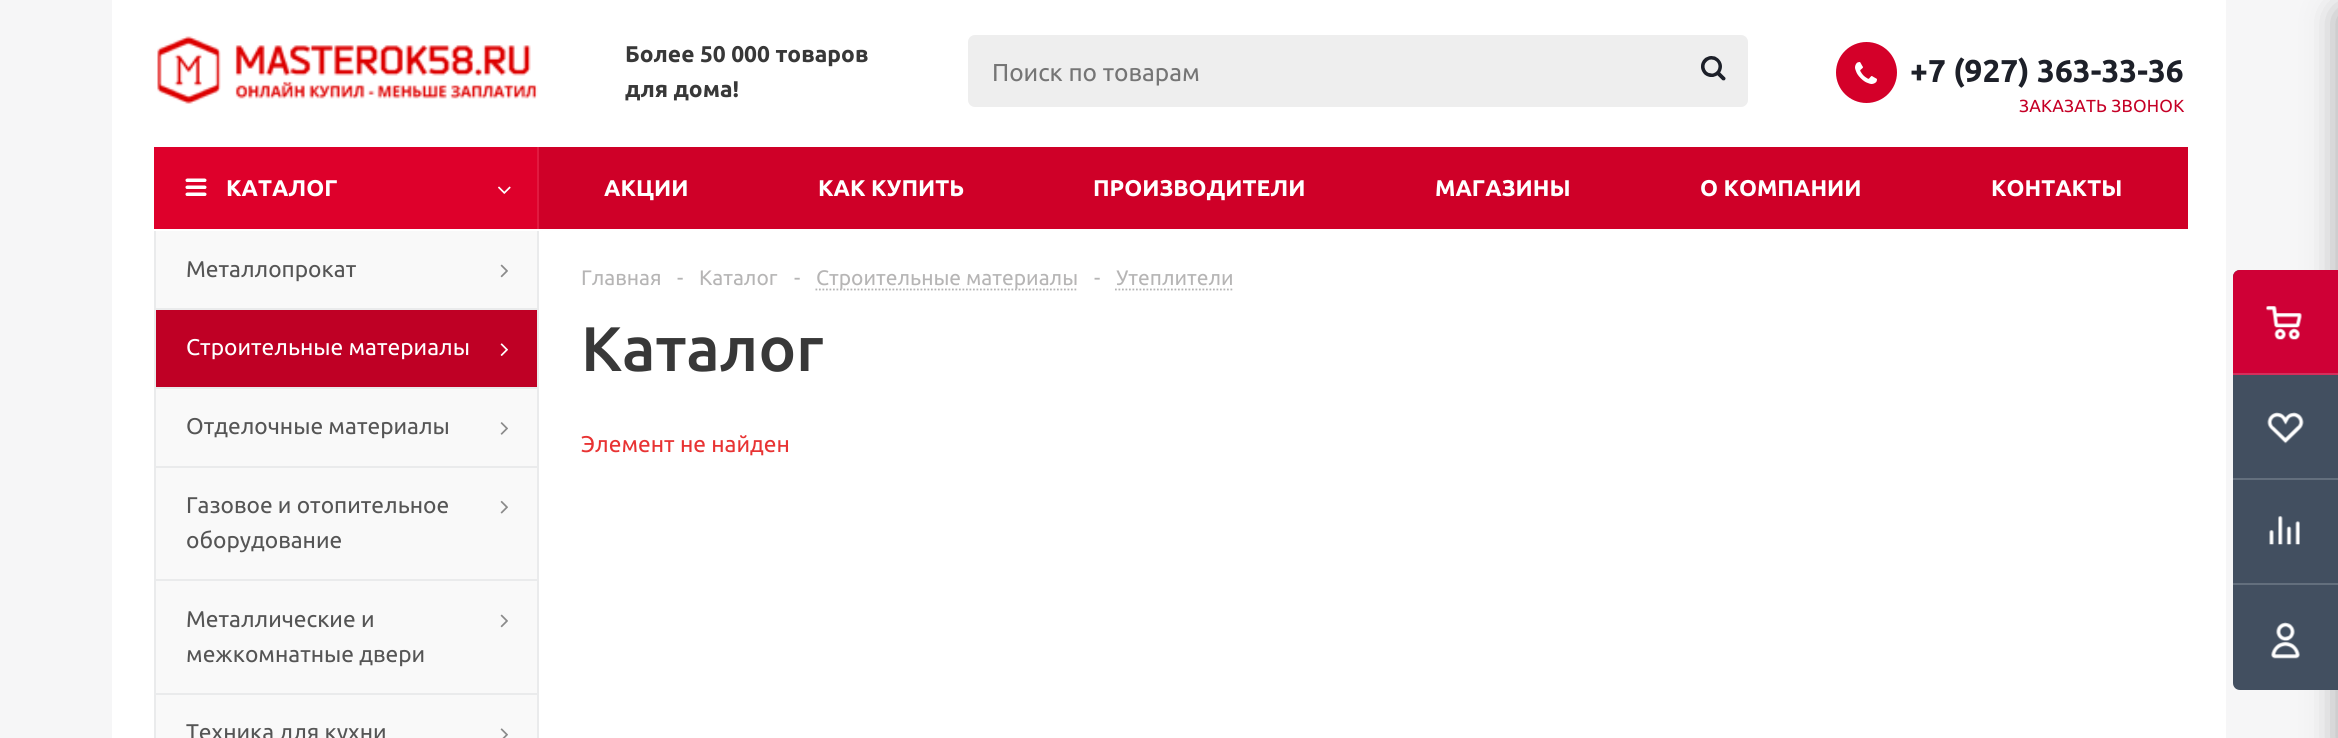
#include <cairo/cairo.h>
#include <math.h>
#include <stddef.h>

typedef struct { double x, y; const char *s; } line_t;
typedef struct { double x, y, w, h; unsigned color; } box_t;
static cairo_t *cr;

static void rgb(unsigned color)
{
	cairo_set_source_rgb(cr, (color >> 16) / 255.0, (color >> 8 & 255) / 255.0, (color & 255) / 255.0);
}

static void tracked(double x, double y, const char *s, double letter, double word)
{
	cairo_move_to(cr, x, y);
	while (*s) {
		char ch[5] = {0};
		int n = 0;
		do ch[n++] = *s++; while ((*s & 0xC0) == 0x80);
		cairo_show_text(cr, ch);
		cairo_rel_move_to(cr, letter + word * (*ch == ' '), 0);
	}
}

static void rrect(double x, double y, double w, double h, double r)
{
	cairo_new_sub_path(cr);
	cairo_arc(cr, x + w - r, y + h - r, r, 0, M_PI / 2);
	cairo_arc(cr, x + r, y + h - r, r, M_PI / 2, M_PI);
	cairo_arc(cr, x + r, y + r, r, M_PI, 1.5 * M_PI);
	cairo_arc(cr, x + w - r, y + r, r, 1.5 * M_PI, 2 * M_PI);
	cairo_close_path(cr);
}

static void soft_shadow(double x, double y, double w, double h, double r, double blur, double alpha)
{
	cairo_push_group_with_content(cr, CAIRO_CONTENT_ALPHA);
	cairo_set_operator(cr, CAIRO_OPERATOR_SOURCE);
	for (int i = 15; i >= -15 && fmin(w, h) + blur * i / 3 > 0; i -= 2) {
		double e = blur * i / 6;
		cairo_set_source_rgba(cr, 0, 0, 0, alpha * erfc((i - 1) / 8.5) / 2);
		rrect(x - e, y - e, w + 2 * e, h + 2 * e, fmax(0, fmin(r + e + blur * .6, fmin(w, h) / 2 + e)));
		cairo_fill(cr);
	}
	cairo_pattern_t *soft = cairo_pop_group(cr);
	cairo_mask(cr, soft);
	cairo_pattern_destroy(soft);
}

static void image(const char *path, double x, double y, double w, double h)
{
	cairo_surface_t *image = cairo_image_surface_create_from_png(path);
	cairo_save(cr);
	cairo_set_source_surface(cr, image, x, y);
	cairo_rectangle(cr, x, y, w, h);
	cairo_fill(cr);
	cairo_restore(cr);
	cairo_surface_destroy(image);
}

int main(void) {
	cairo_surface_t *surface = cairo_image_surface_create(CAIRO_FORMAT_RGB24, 2338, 738);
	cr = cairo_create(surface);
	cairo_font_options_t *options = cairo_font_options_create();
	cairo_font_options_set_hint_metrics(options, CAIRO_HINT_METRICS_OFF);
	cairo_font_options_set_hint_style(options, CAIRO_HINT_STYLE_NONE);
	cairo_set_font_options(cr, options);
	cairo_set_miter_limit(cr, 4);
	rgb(0xf6f6f7);
	cairo_paint(cr);
	rgb(0xffffff);
	cairo_rectangle(cr, 112, 0, 2114, 738);
	cairo_fill(cr);
	image("img/1.png", 157, 36, 381, 68);
	rgb(0xeeeeee);
	rrect(968, 35, 780, 72, 7);
	cairo_fill(cr);
	image("img/2.png", 1701, 56, 25, 25);
	rgb(0xd40029);
	cairo_arc(cr, 1866.5, 72.5, 30.5, 0, 2 * M_PI);
	cairo_fill(cr);
	image("img/3.png", 1855, 62, 22, 22);
	rgb(0x2c2c2c);
	soft_shadow(2338, 11, 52, 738, 4, 16, 0.4);
	rgb(0x424f60);
	cairo_new_path(cr);
	cairo_move_to(cr, 2240, 270);
	cairo_line_to(cr, 2338, 270);
	cairo_line_to(cr, 2338, 690);
	cairo_line_to(cr, 2240, 690);
	cairo_curve_to(cr, 2236, 690, 2233, 687, 2233, 683);
	cairo_line_to(cr, 2233, 277);
	cairo_curve_to(cr, 2233, 273, 2236, 270, 2240, 270);
	cairo_close_path(cr);
	cairo_fill(cr);
	rgb(0xcf0036);
	cairo_new_path(cr);
	cairo_move_to(cr, 2240, 270);
	cairo_line_to(cr, 2338, 270);
	cairo_line_to(cr, 2338, 375);
	cairo_line_to(cr, 2233, 375);
	cairo_line_to(cr, 2233, 277);
	cairo_curve_to(cr, 2233, 273, 2236, 270, 2240, 270);
	cairo_close_path(cr);
	cairo_fill(cr);
	image("img/4.png", 2266, 306, 36, 34);
	rgb(0xd42f5c);
	cairo_rectangle(cr, 2233, 373, 105, 2);
	cairo_fill(cr);
	image("img/5.png", 2267, 412, 37, 32);
	rgb(0x636f7d);
	cairo_rectangle(cr, 2233, 478, 105, 2);
	cairo_fill(cr);
	image("img/6.png", 2269, 516, 31, 29);
	cairo_rectangle(cr, 2233, 583, 105, 2);
	cairo_fill(cr);
	image("img/7.png", 2271, 622, 29, 37);
	rgb(0xcf0028);
	cairo_rectangle(cr, 539, 147, 1649, 82);
	cairo_fill(cr);
	rgb(0xde002b);
	cairo_rectangle(cr, 154, 147, 383, 82);
	cairo_fill(cr);
	image("img/8.png", 185, 178, 22, 18);
	rgb(0xe11a40);
	cairo_rectangle(cr, 537, 147, 2, 82);
	cairo_fill(cr);
	image("img/9.png", 498, 186, 13, 8);
	{
		static const box_t items[] = {
			{156, 231, 381, 77, 0xf9f9f9},
			{537, 231, 2, 77, 0xeaebec},
			{154, 231, 2, 77, 0xeaebec},
		};
		for (size_t i = 0; i < sizeof items / sizeof *items; i++) {
			rgb(items[i].color);
			cairo_rectangle(cr, items[i].x, items[i].y, items[i].w, items[i].h);
			cairo_fill(cr);
		}
	}
	image("img/10.png", 500, 264, 8, 14);
	{
		static const box_t items[] = {
			{156, 310, 381, 77, 0xbf0025},
			{154, 308, 385, 2, 0xeaebec},
			{537, 308, 2, 79, 0xeaebec},
			{154, 308, 2, 79, 0xeaebec},
		};
		for (size_t i = 0; i < sizeof items / sizeof *items; i++) {
			rgb(items[i].color);
			cairo_rectangle(cr, items[i].x, items[i].y, items[i].w, items[i].h);
			cairo_fill(cr);
		}
	}
	image("img/11.png", 500, 343, 8, 13);
	{
		static const box_t items[] = {
			{156, 389, 381, 77, 0xf9f9f9},
			{154, 387, 385, 2, 0xeaebec},
			{537, 387, 2, 79, 0xeaebec},
			{154, 387, 2, 79, 0xeaebec},
		};
		for (size_t i = 0; i < sizeof items / sizeof *items; i++) {
			rgb(items[i].color);
			cairo_rectangle(cr, items[i].x, items[i].y, items[i].w, items[i].h);
			cairo_fill(cr);
		}
	}
	image("img/12.png", 500, 422, 8, 13);
	{
		static const box_t items[] = {
			{156, 468, 381, 111, 0xf9f9f9},
			{154, 466, 385, 2, 0xeaebec},
			{537, 466, 2, 113, 0xeaebec},
			{154, 466, 2, 113, 0xeaebec},
		};
		for (size_t i = 0; i < sizeof items / sizeof *items; i++) {
			rgb(items[i].color);
			cairo_rectangle(cr, items[i].x, items[i].y, items[i].w, items[i].h);
			cairo_fill(cr);
		}
	}
	image("img/13.png", 500, 500, 8, 14);
	{
		static const box_t items[] = {
			{156, 581, 381, 112, 0xf9f9f9},
			{154, 579, 385, 2, 0xeaebec},
			{537, 579, 2, 114, 0xeaebec},
			{154, 579, 2, 114, 0xeaebec},
		};
		for (size_t i = 0; i < sizeof items / sizeof *items; i++) {
			rgb(items[i].color);
			cairo_rectangle(cr, items[i].x, items[i].y, items[i].w, items[i].h);
			cairo_fill(cr);
		}
	}
	image("img/10.png", 500, 614, 8, 14);
	{
		static const box_t items[] = {
			{156, 695, 381, 43, 0xf9f9f9},
			{154, 693, 385, 2, 0xeaebec},
			{537, 693, 2, 45, 0xeaebec},
			{154, 693, 2, 45, 0xeaebec},
		};
		for (size_t i = 0; i < sizeof items / sizeof *items; i++) {
			rgb(items[i].color);
			cairo_rectangle(cr, items[i].x, items[i].y, items[i].w, items[i].h);
			cairo_fill(cr);
		}
	}
	image("img/14.png", 500, 728, 8, 10);
	cairo_new_path(cr);
	cairo_move_to(cr, 815.5, 289.5);
	cairo_line_to(cr, 1078, 289.5);
	rgb(0xb4b4b4);
	cairo_set_line_width(cr, 1.8);
	cairo_set_dash(cr, (double[]){1.75, 1.75}, 2, 0);
	cairo_stroke(cr);
	cairo_new_path(cr);
	cairo_move_to(cr, 1115, 289.5);
	cairo_line_to(cr, 1234, 289.5);
	cairo_stroke(cr);
	cairo_select_font_face(cr, "Ubuntu", CAIRO_FONT_SLANT_NORMAL, CAIRO_FONT_WEIGHT_BOLD);
	cairo_set_font_size(cr, 22.75);
	rgb(0x383838);
	cairo_move_to(cr, 625, 62);
	cairo_show_text(cr, "Более 50 000 товаров");
	cairo_move_to(cr, 625, 97);
	cairo_show_text(cr, "для дома!");
	cairo_select_font_face(cr, "Ubuntu", CAIRO_FONT_SLANT_NORMAL, CAIRO_FONT_WEIGHT_NORMAL);
	cairo_set_font_size(cr, 24.5);
	rgb(0x757575);
	cairo_move_to(cr, 992, 81);
	cairo_show_text(cr, "Поиск по товарам");
	cairo_select_font_face(cr, "Ubuntu", CAIRO_FONT_SLANT_NORMAL, CAIRO_FONT_WEIGHT_BOLD);
	cairo_set_font_size(cr, 31.5);
	rgb(0x1d2029);
	cairo_move_to(cr, 1910, 82);
	cairo_show_text(cr, "+7 (927) 363-33-36");
	cairo_select_font_face(cr, "Ubuntu", CAIRO_FONT_SLANT_NORMAL, CAIRO_FONT_WEIGHT_NORMAL);
	cairo_set_font_size(cr, 17.5);
	rgb(0xc50026);
	tracked(2019, 112, "ЗАКАЗАТЬ ЗВОНОК", 0.2, 0);
	cairo_select_font_face(cr, "Ubuntu", CAIRO_FONT_SLANT_NORMAL, CAIRO_FONT_WEIGHT_BOLD);
	cairo_set_font_size(cr, 22.75);
	rgb(0xffffff);
	{
		static const line_t items[] = {
			{226, 196, "КАТАЛОГ"},
			{604, 196, "АКЦИИ"},
			{818, 196, "КАК КУПИТЬ"},
			{1093, 196, "ПРОИЗВОДИТЕЛИ"},
			{1435, 196, "МАГАЗИНЫ"},
			{1700, 196, "О КОМПАНИИ"},
			{1991, 196, "КОНТАКТЫ"},
		};
		for (size_t i = 0; i < sizeof items / sizeof *items; i++) {
			cairo_move_to(cr, items[i].x, items[i].y);
			cairo_show_text(cr, items[i].s);
		}
	}
	cairo_select_font_face(cr, "Ubuntu", CAIRO_FONT_SLANT_NORMAL, CAIRO_FONT_WEIGHT_NORMAL);
	rgb(0x555555);
	cairo_move_to(cr, 186, 277);
	cairo_show_text(cr, "Металлопрокат");
	rgb(0xffffff);
	cairo_move_to(cr, 186, 355);
	cairo_show_text(cr, "Строительные материалы");
	rgb(0x555555);
	{
		static const line_t items[] = {
			{186, 434, "Отделочные материалы"},
			{186, 513, "Газовое и отопительное"},
			{186, 548, "оборудование"},
			{186, 627, "Металлические и"},
			{186, 662, "межкомнатные двери"},
			{186, 740, "Техника для кухни"},
		};
		for (size_t i = 0; i < sizeof items / sizeof *items; i++) {
			cairo_move_to(cr, items[i].x, items[i].y);
			cairo_show_text(cr, items[i].s);
		}
	}
	cairo_set_font_size(cr, 21);
	rgb(0xb6b5b5);
	{
		static const line_t items[] = {
			{581, 285, "Главная"},
			{677, 285, "-"},
			{699, 285, "Каталог"},
			{794, 285, "-"},
			{816, 285, "Строительные материалы"},
			{1094, 285, "-"},
			{1116, 285, "Утеплители"},
		};
		for (size_t i = 0; i < sizeof items / sizeof *items; i++) {
			cairo_move_to(cr, items[i].x, items[i].y);
			cairo_show_text(cr, items[i].s);
		}
	}
	cairo_select_font_face(cr, "Ubuntu Medium", CAIRO_FONT_SLANT_NORMAL, CAIRO_FONT_WEIGHT_NORMAL);
	cairo_set_font_size(cr, 63);
	rgb(0x383838);
	cairo_move_to(cr, 581, 371);
	cairo_show_text(cr, "Каталог");
	cairo_select_font_face(cr, "Ubuntu", CAIRO_FONT_SLANT_NORMAL, CAIRO_FONT_WEIGHT_NORMAL);
	cairo_set_font_size(cr, 22.75);
	rgb(0xe83333);
	cairo_move_to(cr, 581, 452);
	cairo_show_text(cr, "Элемент не найден");
	cairo_surface_write_to_png(surface, "page.png");
	cairo_font_options_destroy(options);
	cairo_destroy(cr);
	cairo_surface_destroy(surface);
	return 0;
}
